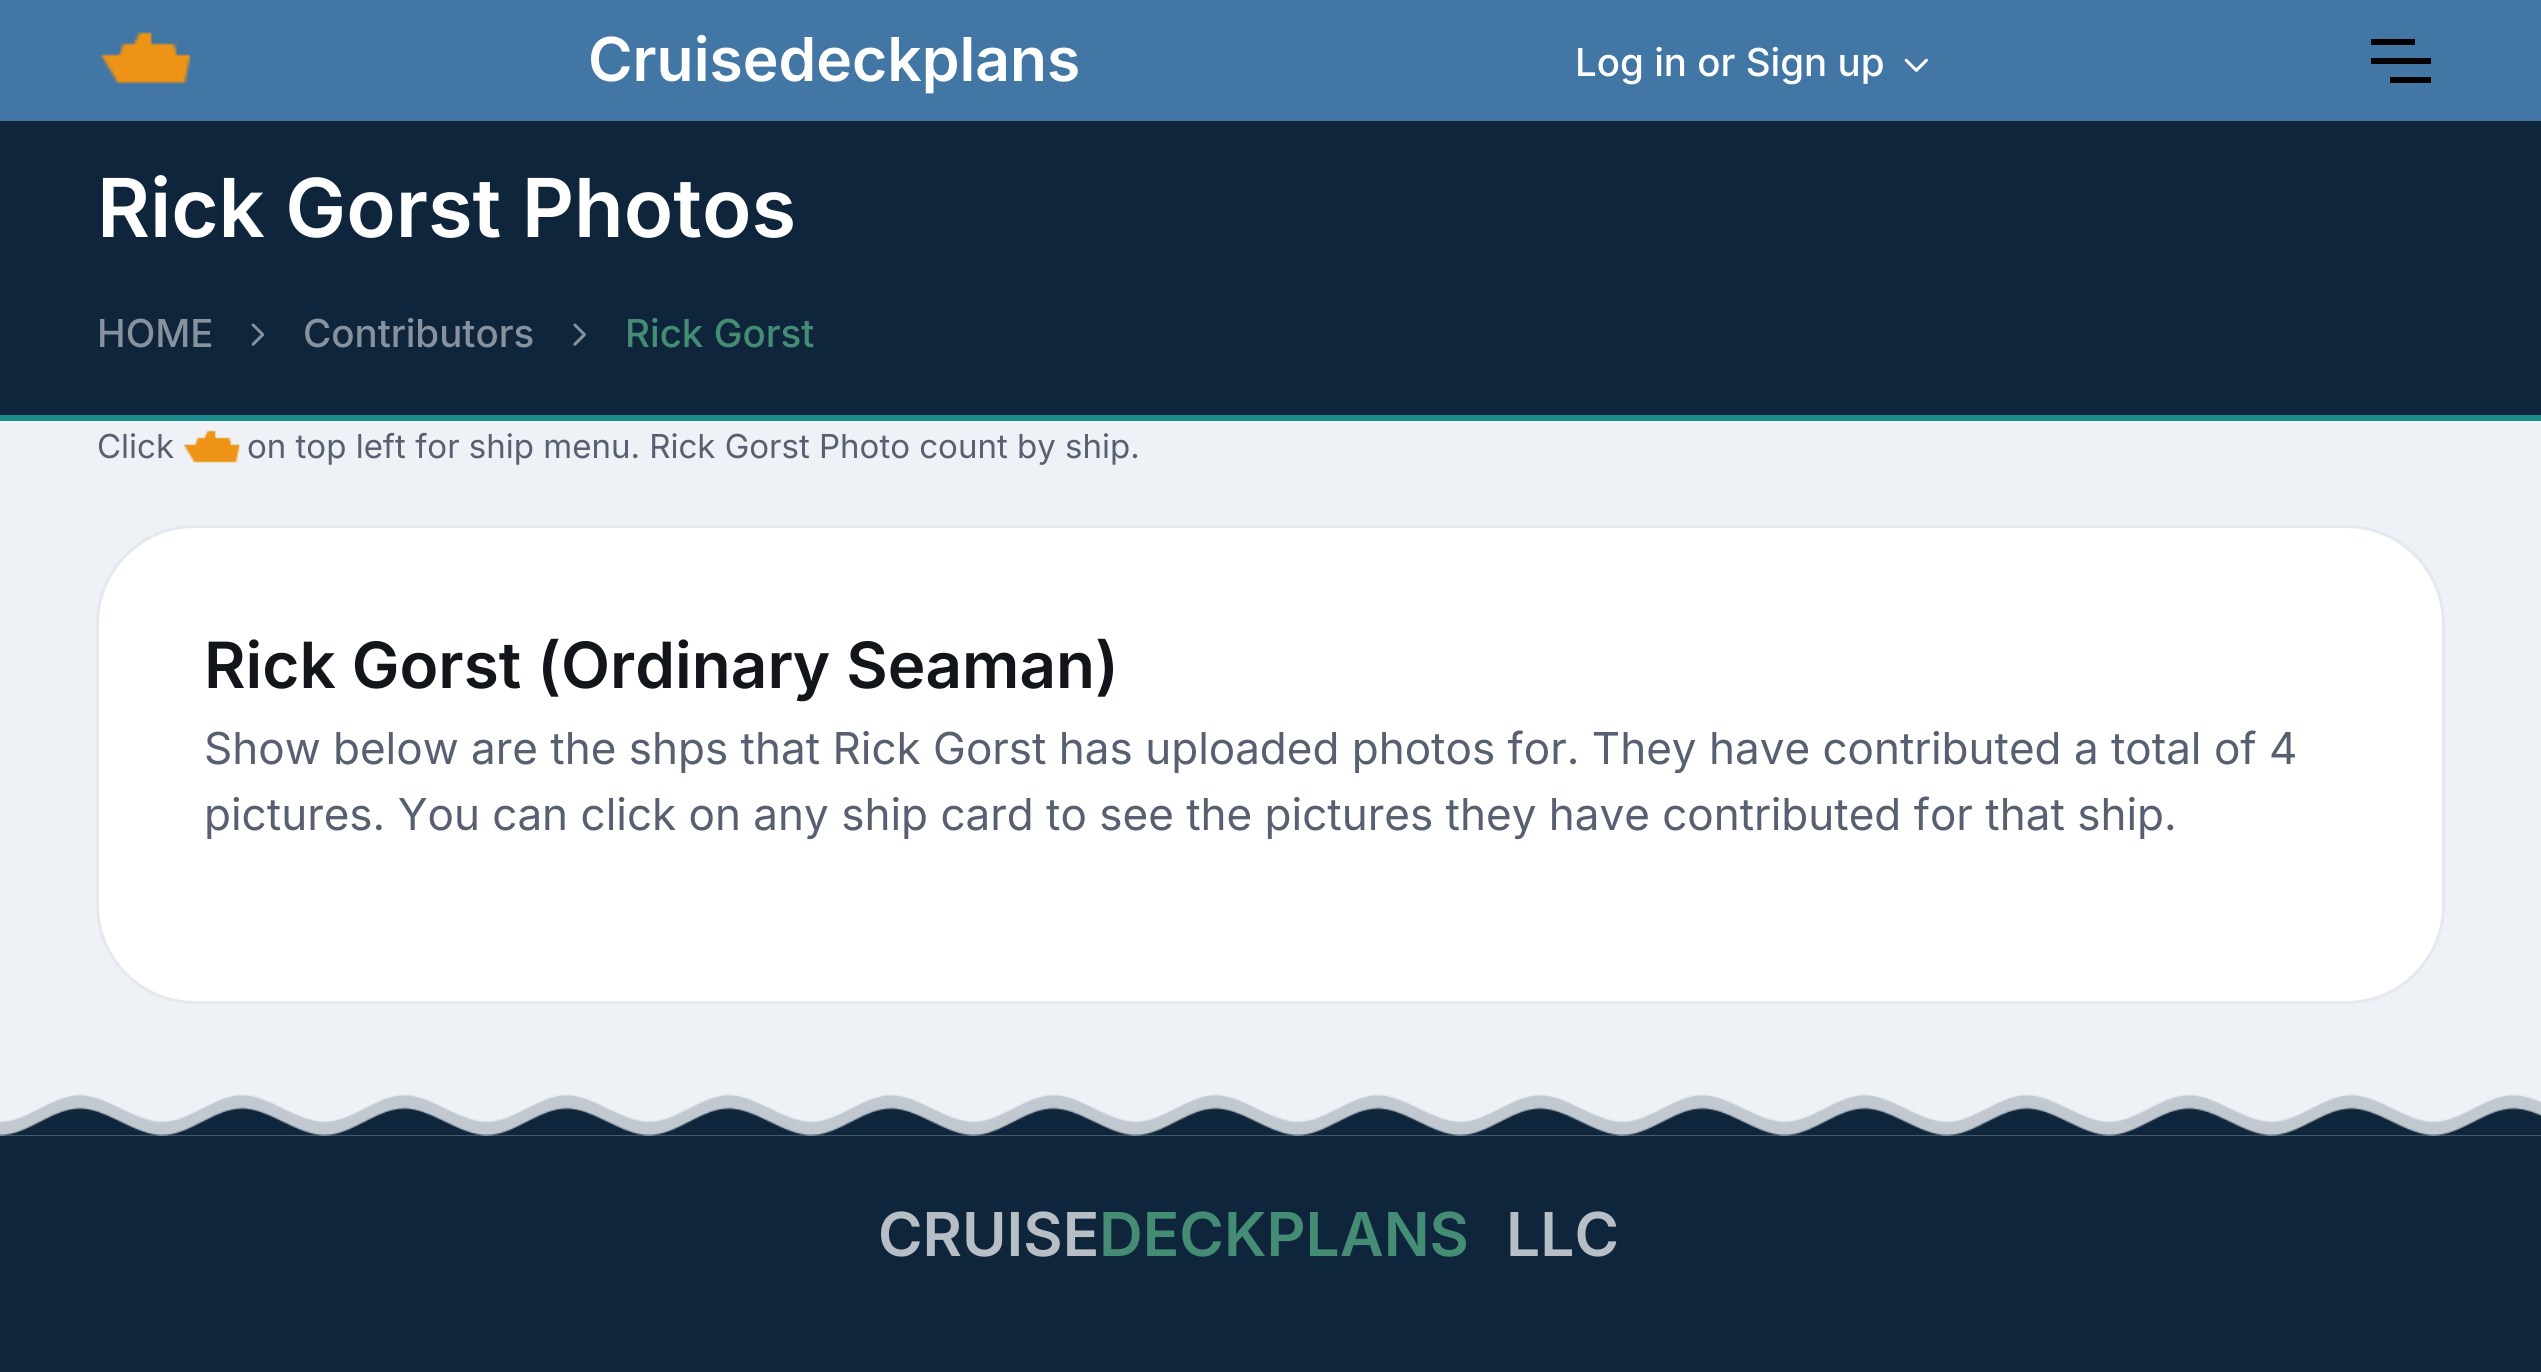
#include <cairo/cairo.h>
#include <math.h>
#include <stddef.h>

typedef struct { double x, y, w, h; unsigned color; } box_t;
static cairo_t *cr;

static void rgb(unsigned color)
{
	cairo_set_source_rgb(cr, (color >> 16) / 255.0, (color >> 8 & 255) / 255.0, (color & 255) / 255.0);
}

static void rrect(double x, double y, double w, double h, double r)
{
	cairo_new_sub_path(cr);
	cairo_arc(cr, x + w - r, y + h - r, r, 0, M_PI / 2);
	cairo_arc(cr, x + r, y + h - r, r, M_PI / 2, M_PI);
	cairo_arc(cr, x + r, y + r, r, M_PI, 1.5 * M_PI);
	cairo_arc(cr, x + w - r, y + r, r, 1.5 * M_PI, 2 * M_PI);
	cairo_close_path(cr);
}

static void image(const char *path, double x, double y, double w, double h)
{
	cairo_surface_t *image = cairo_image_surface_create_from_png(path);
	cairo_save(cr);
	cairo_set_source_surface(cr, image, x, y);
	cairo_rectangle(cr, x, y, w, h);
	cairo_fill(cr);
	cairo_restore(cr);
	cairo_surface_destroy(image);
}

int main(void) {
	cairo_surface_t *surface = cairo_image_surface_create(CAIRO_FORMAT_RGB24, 2541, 1372);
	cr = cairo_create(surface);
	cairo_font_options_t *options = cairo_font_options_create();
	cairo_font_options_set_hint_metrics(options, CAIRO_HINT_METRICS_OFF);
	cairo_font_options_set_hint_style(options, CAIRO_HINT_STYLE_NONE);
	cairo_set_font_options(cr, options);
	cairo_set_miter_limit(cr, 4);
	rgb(0xeef1f5);
	cairo_paint(cr);
	rgb(0x4276a4);
	cairo_rectangle(cr, 0, 0, 2541, 121);
	cairo_fill(cr);
	image("img/1.png", 101, 30, 89, 54);
	image("img/2.png", 1904, 58, 24, 14);
	{
		static const box_t items[] = {
			{2371, 58, 60, 6, 0x000000},
			{2371, 39, 44, 6, 0x000000},
			{2390, 77, 41, 6, 0x000000},
			{0, 121, 2541, 294, 0x0e253c},
			{0, 415, 2541, 6, 0x1a8e8c},
		};
		for (size_t i = 0; i < sizeof items / sizeof *items; i++) {
			rgb(items[i].color);
			cairo_rectangle(cr, items[i].x, items[i].y, items[i].w, items[i].h);
			cairo_fill(cr);
		}
	}
	image("img/3.png", 251, 323, 14, 23);
	image("img/4.png", 573, 323, 13, 23);
	image("img/5.png", 184, 429, 56, 34);
	rgb(0xffffff);
	rrect(97.5, 526.5, 2346, 476, 97.5);
	cairo_fill_preserve(cr);
	rgb(0xe3e9ef);
	cairo_set_line_width(cr, 3);
	cairo_stroke(cr);
	rgb(0x0e253c);
	cairo_rectangle(cr, 0, 1136, 2541, 236);
	cairo_fill(cr);
	image("img/6.png", 0, 1094, 2541, 42);
	cairo_select_font_face(cr, "Inter SemiBold", CAIRO_FONT_SLANT_NORMAL, CAIRO_FONT_WEIGHT_NORMAL);
	cairo_set_font_size(cr, 60.5);
	rgb(0xffffff);
	cairo_move_to(cr, 588, 81);
	cairo_show_text(cr, "Cruisedeckplans");
	cairo_select_font_face(cr, "Inter Medium", CAIRO_FONT_SLANT_NORMAL, CAIRO_FONT_WEIGHT_NORMAL);
	cairo_set_font_size(cr, 38.5);
	cairo_move_to(cr, 1575, 76);
	cairo_show_text(cr, "Log in or Sign up");
	cairo_select_font_face(cr, "Inter SemiBold", CAIRO_FONT_SLANT_NORMAL, CAIRO_FONT_WEIGHT_NORMAL);
	cairo_set_font_size(cr, 81.25);
	cairo_move_to(cr, 97, 237);
	cairo_show_text(cr, "Rick Gorst Photos");
	cairo_select_font_face(cr, "Inter Medium", CAIRO_FONT_SLANT_NORMAL, CAIRO_FONT_WEIGHT_NORMAL);
	cairo_set_font_size(cr, 38.5);
	rgb(0x87929e);
	cairo_move_to(cr, 97, 347);
	cairo_show_text(cr, "HOME");
	cairo_move_to(cr, 303, 347);
	cairo_show_text(cr, "Contributors");
	rgb(0x448c74);
	cairo_move_to(cr, 625, 347);
	cairo_show_text(cr, "Rick Gorst");
	cairo_select_font_face(cr, "Inter", CAIRO_FONT_SLANT_NORMAL, CAIRO_FONT_WEIGHT_NORMAL);
	cairo_set_font_size(cr, 33);
	rgb(0x576071);
	cairo_move_to(cr, 97, 458);
	cairo_show_text(cr, "Click");
	cairo_move_to(cr, 247, 458);
	cairo_show_text(cr, "on top left for ship menu. Rick Gorst Photo count by ship.");
	cairo_select_font_face(cr, "Inter SemiBold", CAIRO_FONT_SLANT_NORMAL, CAIRO_FONT_WEIGHT_NORMAL);
	cairo_set_font_size(cr, 63.75);
	rgb(0x121519);
	cairo_move_to(cr, 204, 688);
	cairo_show_text(cr, "Rick Gorst (Ordinary Seaman)");
	cairo_select_font_face(cr, "Inter", CAIRO_FONT_SLANT_NORMAL, CAIRO_FONT_WEIGHT_NORMAL);
	cairo_set_font_size(cr, 44);
	rgb(0x576071);
	cairo_move_to(cr, 204, 764);
	cairo_show_text(cr, "Show below are the shps that Rick Gorst has uploaded photos for. They have contributed a total of 4");
	cairo_move_to(cr, 204, 830);
	cairo_show_text(cr, "pictures. You can click on any ship card to see the pictures they have contributed for that ship.");
	cairo_select_font_face(cr, "Inter SemiBold", CAIRO_FONT_SLANT_NORMAL, CAIRO_FONT_WEIGHT_NORMAL);
	cairo_set_font_size(cr, 60.5);
	rgb(0xb7bec5);
	cairo_move_to(cr, 878, 1256);
	cairo_show_text(cr, "CRUISE");
	rgb(0x448c74);
	cairo_move_to(cr, 1099, 1256);
	cairo_show_text(cr, "DECKPLANS");
	rgb(0xb7bec5);
	cairo_move_to(cr, 1506, 1256);
	cairo_show_text(cr, "LLC");
	cairo_surface_write_to_png(surface, "page.png");
	cairo_font_options_destroy(options);
	cairo_destroy(cr);
	cairo_surface_destroy(surface);
	return 0;
}
